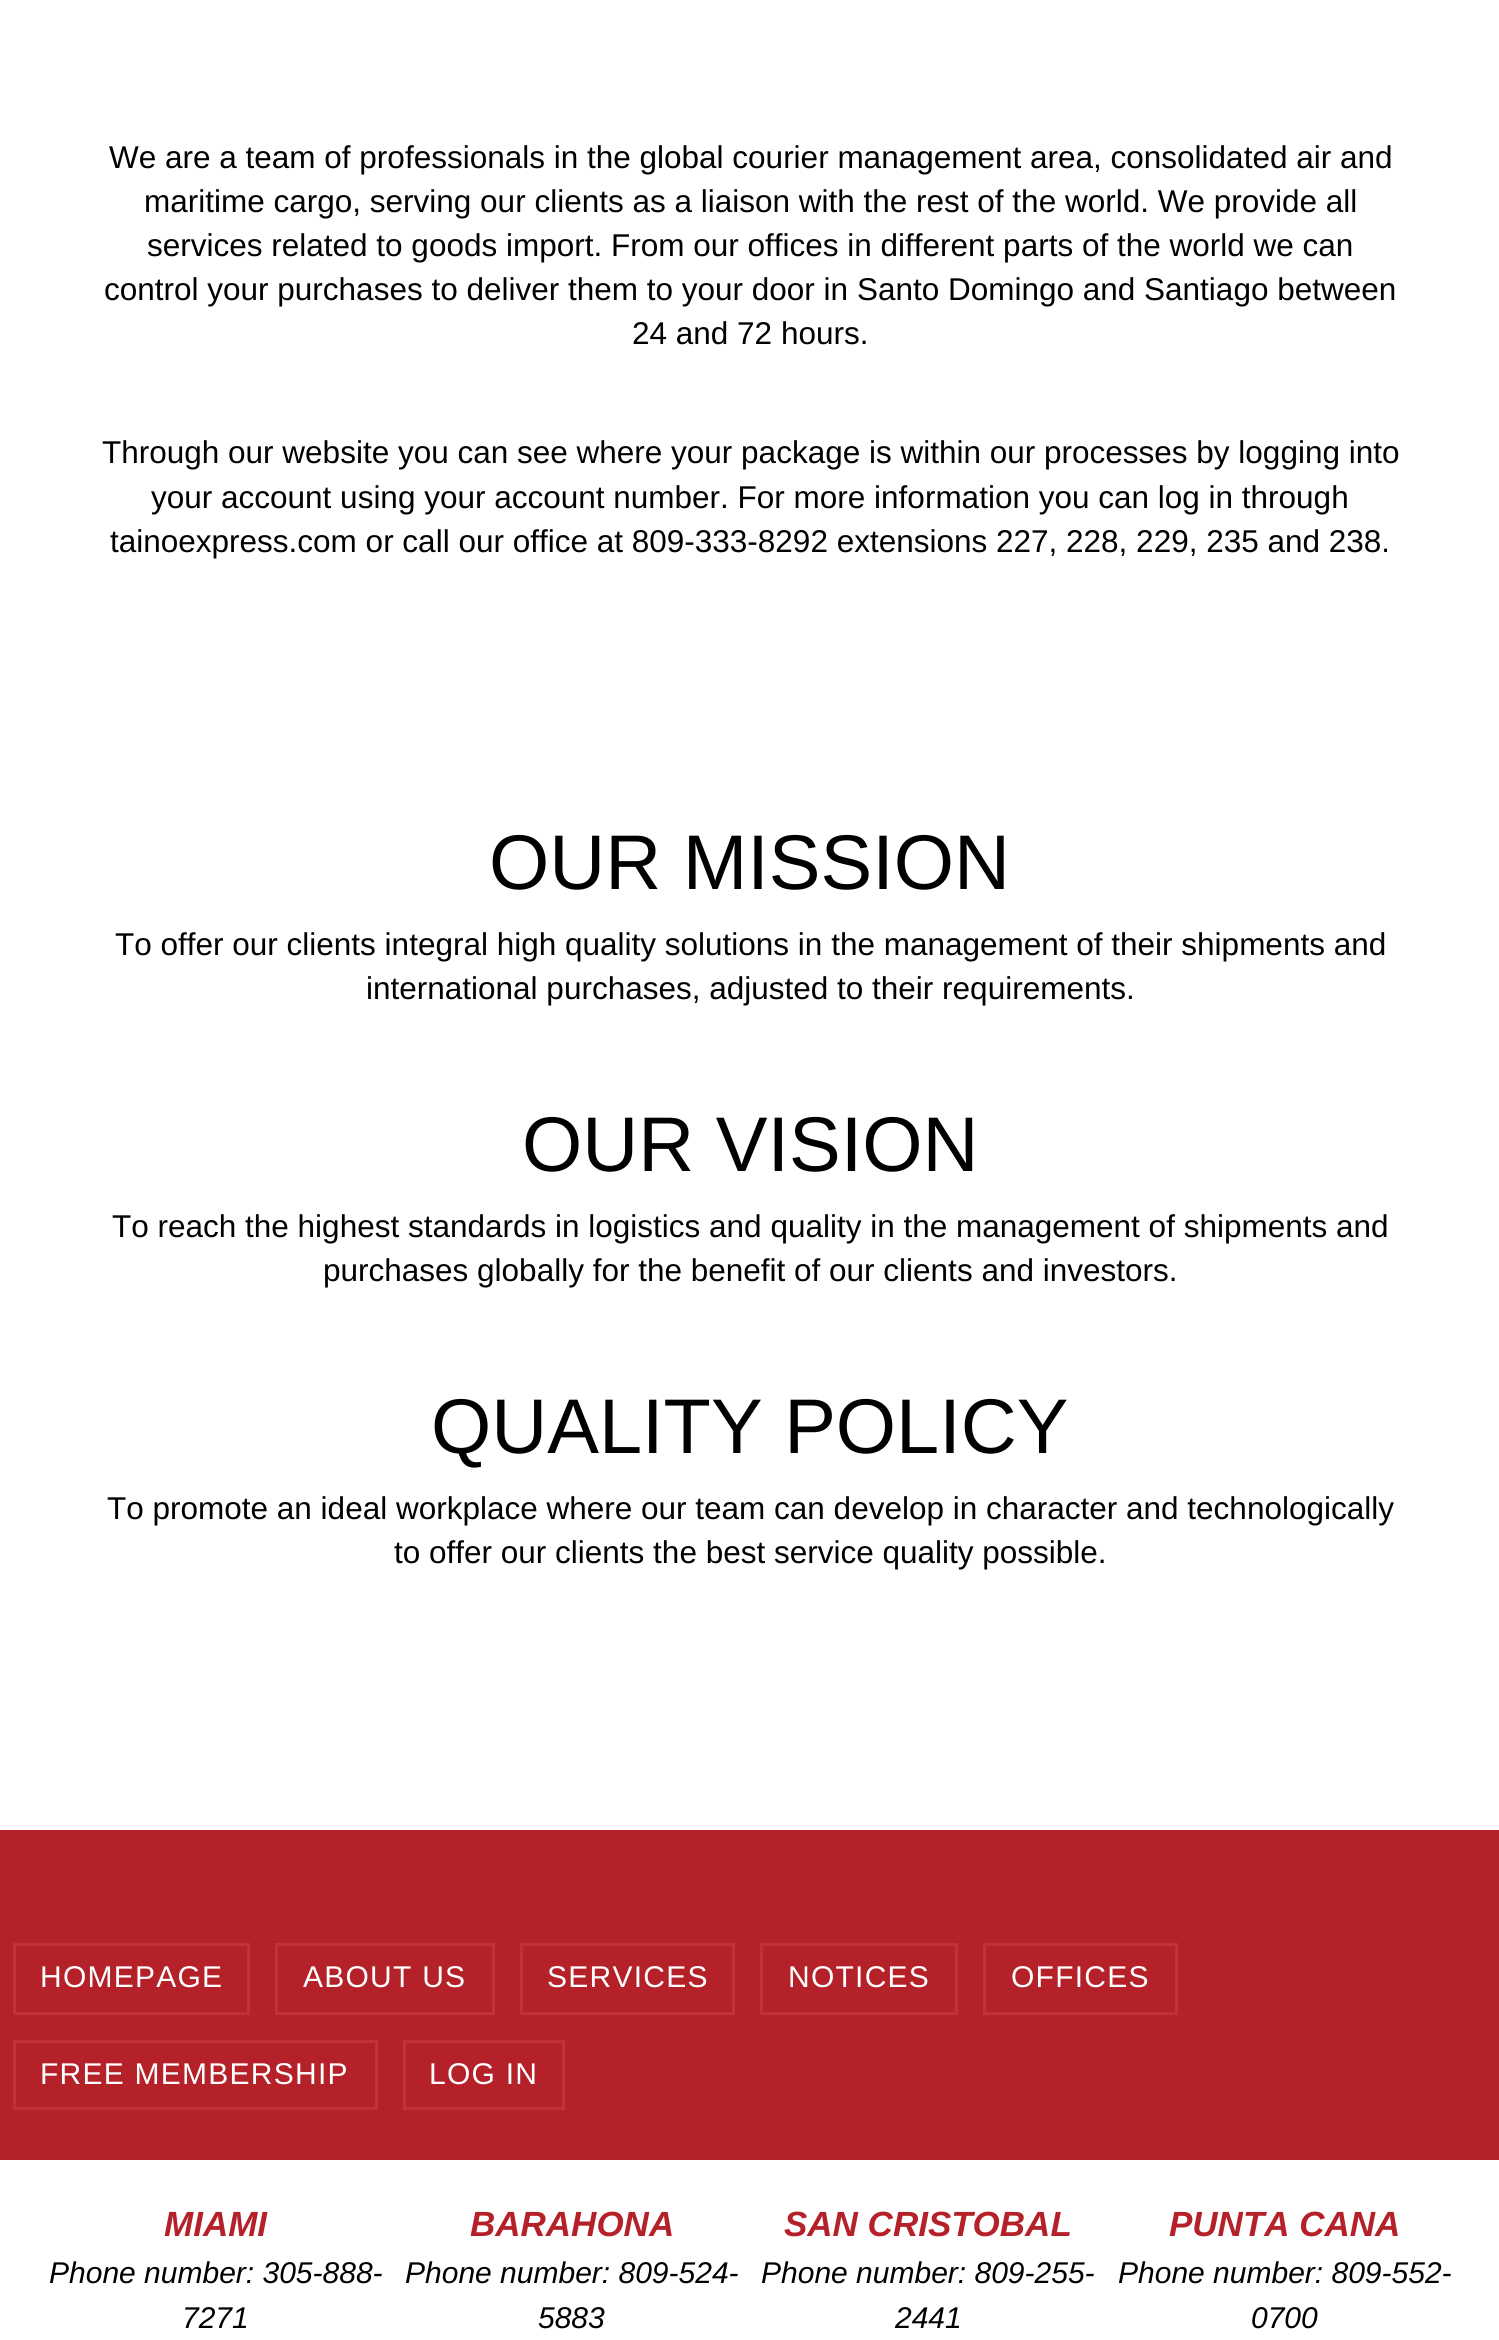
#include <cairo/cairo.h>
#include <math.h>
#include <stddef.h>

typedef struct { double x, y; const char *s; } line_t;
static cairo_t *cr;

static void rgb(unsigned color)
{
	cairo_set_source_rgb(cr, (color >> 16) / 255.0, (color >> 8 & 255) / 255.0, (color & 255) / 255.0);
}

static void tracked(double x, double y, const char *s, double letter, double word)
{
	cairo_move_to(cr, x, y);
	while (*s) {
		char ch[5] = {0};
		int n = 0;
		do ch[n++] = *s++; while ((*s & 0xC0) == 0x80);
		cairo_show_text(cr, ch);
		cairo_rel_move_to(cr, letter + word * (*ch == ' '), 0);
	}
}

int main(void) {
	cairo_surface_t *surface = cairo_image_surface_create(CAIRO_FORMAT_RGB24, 1499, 2340);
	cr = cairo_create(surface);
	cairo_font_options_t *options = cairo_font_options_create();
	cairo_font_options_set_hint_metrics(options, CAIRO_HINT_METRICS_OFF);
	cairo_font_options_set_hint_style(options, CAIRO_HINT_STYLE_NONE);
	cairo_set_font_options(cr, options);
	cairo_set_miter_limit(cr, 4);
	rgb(0xffffff);
	cairo_paint(cr);
	rgb(0xb42129);
	cairo_rectangle(cr, 0, 1830, 1499, 330);
	cairo_fill(cr);
	cairo_rectangle(cr, 14.5, 1944.5, 234, 69);
	rgb(0xc33038);
	cairo_set_line_width(cr, 3);
	cairo_stroke(cr);
	cairo_rectangle(cr, 276.5, 1944.5, 217, 69);
	cairo_stroke(cr);
	cairo_rectangle(cr, 521.5, 1944.5, 212, 69);
	cairo_stroke(cr);
	cairo_rectangle(cr, 761.5, 1944.5, 195, 69);
	cairo_stroke(cr);
	cairo_rectangle(cr, 984.5, 1944.5, 192, 69);
	cairo_stroke(cr);
	cairo_rectangle(cr, 14.5, 2041.5, 362, 67);
	cairo_stroke(cr);
	cairo_rectangle(cr, 404.5, 2041.5, 159, 67);
	cairo_stroke(cr);
	cairo_select_font_face(cr, "Liberation Sans", CAIRO_FONT_SLANT_NORMAL, CAIRO_FONT_WEIGHT_NORMAL);
	cairo_set_font_size(cr, 31.5);
	rgb(0x000000);
	{
		static const line_t items[] = {
			{109, 168, "We are a team of professionals in the global courier management area, consolidated air and"},
			{144, 212, "maritime cargo, serving our clients as a liaison with the rest of the world. We provide all"},
			{147, 256, "services related to goods import. From our offices in different parts of the world we can"},
			{104, 300, "control your purchases to deliver them to your door in Santo Domingo and Santiago between"},
			{632, 344, "24 and 72 hours."},
			{102, 463, "Through our website you can see where your package is within our processes by logging into"},
			{151, 508, "your account using your account number. For more information you can log in through"},
			{110, 552, "tainoexpress.com or call our office at 809-333-8292 extensions 227, 228, 229, 235 and 238."},
		};
		for (size_t i = 0; i < sizeof items / sizeof *items; i++) {
			cairo_move_to(cr, items[i].x, items[i].y);
			cairo_show_text(cr, items[i].s);
		}
	}
	cairo_set_font_size(cr, 77.5);
	cairo_move_to(cr, 489, 889);
	cairo_show_text(cr, "OUR MISSION");
	cairo_set_font_size(cr, 31.5);
	cairo_move_to(cr, 115, 955);
	cairo_show_text(cr, "To offer our clients integral high quality solutions in the management of their shipments and");
	cairo_move_to(cr, 366, 999);
	cairo_show_text(cr, "international purchases, adjusted to their requirements.");
	cairo_set_font_size(cr, 77.5);
	cairo_move_to(cr, 522, 1171);
	cairo_show_text(cr, "OUR VISION");
	cairo_set_font_size(cr, 31.5);
	cairo_move_to(cr, 112, 1237);
	cairo_show_text(cr, "To reach the highest standards in logistics and quality in the management of shipments and");
	cairo_move_to(cr, 323, 1281);
	cairo_show_text(cr, "purchases globally for the benefit of our clients and investors.");
	cairo_set_font_size(cr, 77.5);
	cairo_move_to(cr, 431, 1453);
	cairo_show_text(cr, "QUALITY POLICY");
	cairo_set_font_size(cr, 31.5);
	cairo_move_to(cr, 107, 1519);
	cairo_show_text(cr, "To promote an ideal workplace where our team can develop in character and technologically");
	cairo_move_to(cr, 394, 1563);
	cairo_show_text(cr, "to offer our clients the best service quality possible.");
	cairo_set_font_size(cr, 30);
	rgb(0xffffff);
	{
		static const line_t items[] = {
			{40, 1987, "HOMEPAGE"},
			{303, 1987, "ABOUT US"},
			{547, 1987, "SERVICES"},
			{788, 1987, "NOTICES"},
			{1011, 1987, "OFFICES"},
			{40, 2084, "FREE MEMBERSHIP"},
			{429, 2084, "LOG IN"},
		};
		for (size_t i = 0; i < sizeof items / sizeof *items; i++) {
			tracked(items[i].x, items[i].y, items[i].s, 1.25, 0);
		}
	}
	cairo_select_font_face(cr, "Liberation Sans", CAIRO_FONT_SLANT_ITALIC, CAIRO_FONT_WEIGHT_BOLD);
	cairo_set_font_size(cr, 35);
	rgb(0xb42129);
	cairo_move_to(cr, 164, 2236);
	cairo_show_text(cr, "MIAMI");
	cairo_select_font_face(cr, "Liberation Sans", CAIRO_FONT_SLANT_ITALIC, CAIRO_FONT_WEIGHT_NORMAL);
	cairo_set_font_size(cr, 30);
	rgb(0x000000);
	cairo_move_to(cr, 49, 2283);
	cairo_show_text(cr, "Phone number: 305-888-");
	cairo_move_to(cr, 182, 2328);
	cairo_show_text(cr, "7271");
	cairo_select_font_face(cr, "Liberation Sans", CAIRO_FONT_SLANT_ITALIC, CAIRO_FONT_WEIGHT_BOLD);
	cairo_set_font_size(cr, 35);
	rgb(0xb42129);
	cairo_move_to(cr, 470, 2236);
	cairo_show_text(cr, "BARAHONA");
	cairo_select_font_face(cr, "Liberation Sans", CAIRO_FONT_SLANT_ITALIC, CAIRO_FONT_WEIGHT_NORMAL);
	cairo_set_font_size(cr, 30);
	rgb(0x000000);
	cairo_move_to(cr, 405, 2283);
	cairo_show_text(cr, "Phone number: 809-524-");
	cairo_move_to(cr, 538, 2328);
	cairo_show_text(cr, "5883");
	cairo_select_font_face(cr, "Liberation Sans", CAIRO_FONT_SLANT_ITALIC, CAIRO_FONT_WEIGHT_BOLD);
	cairo_set_font_size(cr, 35);
	rgb(0xb42129);
	cairo_move_to(cr, 784, 2236);
	cairo_show_text(cr, "SAN CRISTOBAL");
	cairo_select_font_face(cr, "Liberation Sans", CAIRO_FONT_SLANT_ITALIC, CAIRO_FONT_WEIGHT_NORMAL);
	cairo_set_font_size(cr, 30);
	rgb(0x000000);
	cairo_move_to(cr, 761, 2283);
	cairo_show_text(cr, "Phone number: 809-255-");
	cairo_move_to(cr, 895, 2328);
	cairo_show_text(cr, "2441");
	cairo_select_font_face(cr, "Liberation Sans", CAIRO_FONT_SLANT_ITALIC, CAIRO_FONT_WEIGHT_BOLD);
	cairo_set_font_size(cr, 35);
	rgb(0xb42129);
	cairo_move_to(cr, 1169, 2236);
	cairo_show_text(cr, "PUNTA CANA");
	cairo_select_font_face(cr, "Liberation Sans", CAIRO_FONT_SLANT_ITALIC, CAIRO_FONT_WEIGHT_NORMAL);
	cairo_set_font_size(cr, 30);
	rgb(0x000000);
	cairo_move_to(cr, 1118, 2283);
	cairo_show_text(cr, "Phone number: 809-552-");
	cairo_move_to(cr, 1251, 2328);
	cairo_show_text(cr, "0700");
	cairo_surface_write_to_png(surface, "page.png");
	cairo_font_options_destroy(options);
	cairo_destroy(cr);
	cairo_surface_destroy(surface);
	return 0;
}
